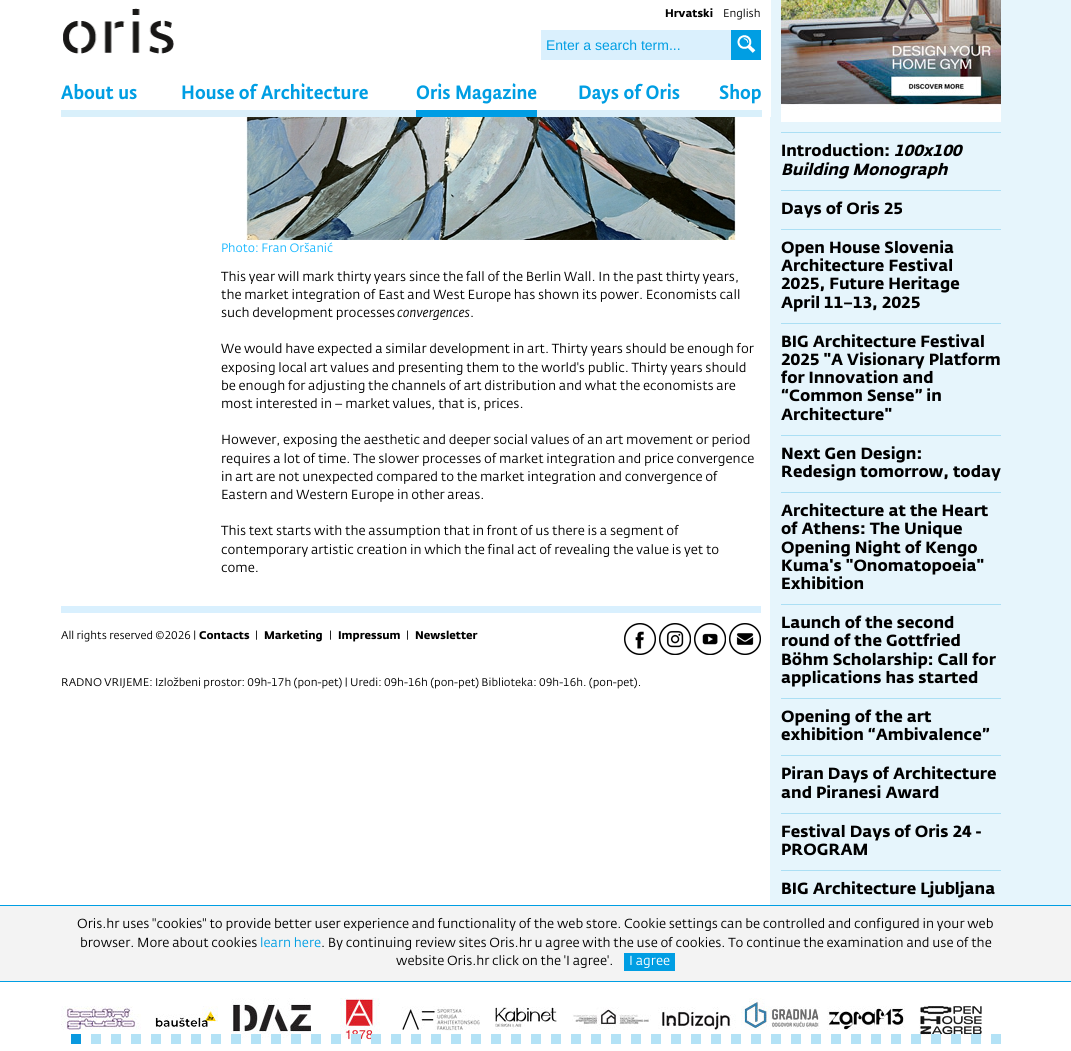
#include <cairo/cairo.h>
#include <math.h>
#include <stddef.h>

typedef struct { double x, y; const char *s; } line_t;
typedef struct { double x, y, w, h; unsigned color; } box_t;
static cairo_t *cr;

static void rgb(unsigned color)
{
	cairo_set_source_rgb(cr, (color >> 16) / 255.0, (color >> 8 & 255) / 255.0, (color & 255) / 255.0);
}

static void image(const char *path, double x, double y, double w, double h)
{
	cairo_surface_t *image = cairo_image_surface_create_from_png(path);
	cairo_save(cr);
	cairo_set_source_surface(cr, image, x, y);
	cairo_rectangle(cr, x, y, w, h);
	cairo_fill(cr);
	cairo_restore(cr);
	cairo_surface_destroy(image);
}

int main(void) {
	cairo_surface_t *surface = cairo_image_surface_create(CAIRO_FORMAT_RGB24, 1071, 1051);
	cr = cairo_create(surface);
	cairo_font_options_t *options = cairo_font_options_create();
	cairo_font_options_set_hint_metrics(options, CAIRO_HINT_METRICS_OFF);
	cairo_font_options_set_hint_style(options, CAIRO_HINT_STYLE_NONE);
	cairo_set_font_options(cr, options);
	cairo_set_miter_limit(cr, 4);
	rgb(0xffffff);
	cairo_paint(cr);
	rgb(0xe6f5fc);
	cairo_rectangle(cr, 770, 0, 301, 905);
	cairo_fill(cr);
	rgb(0xffffff);
	cairo_rectangle(cr, 770, 0, 1, 117);
	cairo_fill(cr);
	image("img/1.png", 63, 8, 111, 46);
	rgb(0xdaf0fd);
	cairo_rectangle(cr, 541, 30, 190, 30);
	cairo_fill(cr);
	image("img/2.png", 731, 30, 30, 30);
	{
		static const box_t items[] = {
			{137, 110, 582, 7, 0xdbeffa},
			{61, 110, 76, 7, 0xd9f0fb},
			{416, 110, 121, 7, 0x009de4},
			{719, 110, 43, 7, 0xd9f0fb},
		};
		for (size_t i = 0; i < sizeof items / sizeof *items; i++) {
			rgb(items[i].color);
			cairo_rectangle(cr, items[i].x, items[i].y, items[i].w, items[i].h);
			cairo_fill(cr);
		}
	}
	image("img/3.png", 246, 117, 490, 123);
	rgb(0xd9f0fe);
	cairo_rectangle(cr, 61, 606, 700, 7);
	cairo_fill(cr);
	image("img/4.png", 624, 623, 32, 32);
	image("img/5.png", 659, 623, 32, 32);
	image("img/6.png", 694, 623, 32, 32);
	image("img/7.png", 729, 623, 32, 32);
	rgb(0xabdff4);
	cairo_rectangle(cr, 781, 132, 220, 1);
	cairo_fill(cr);
	image("img/8.png", 781, 0, 220, 122);
	{
		static const box_t items[] = {
			{781, 190, 220, 1, 0xabdff4},
			{781, 229, 220, 1, 0xabdff4},
			{781, 323, 220, 1, 0xabdff4},
			{781, 435, 220, 1, 0xabdff4},
			{781, 492, 220, 1, 0xabdff4},
			{781, 604, 220, 1, 0xabdff4},
			{781, 698, 220, 1, 0xabdff4},
			{781, 755, 220, 1, 0xabdff4},
			{781, 813, 220, 1, 0xabdff4},
			{781, 870, 220, 1, 0xabdff4},
			{0, 906, 1071, 75, 0xf3f3f3},
			{0, 905, 1071, 1, 0x009ee3},
			{0, 981, 1071, 1, 0x009ee3},
			{624, 953, 51, 18, 0x009ee3},
		};
		for (size_t i = 0; i < sizeof items / sizeof *items; i++) {
			rgb(items[i].color);
			cairo_rectangle(cr, items[i].x, items[i].y, items[i].w, items[i].h);
			cairo_fill(cr);
		}
	}
	image("img/9.png", 61, 1006, 80, 24);
	image("img/10.png", 155, 1006, 63, 24);
	image("img/11.png", 231, 998, 80, 40);
	image("img/12.png", 340, 998, 40, 42);
	image("img/13.png", 401, 1006, 79, 25);
	image("img/14.png", 495, 1007, 62, 23);
	image("img/15.png", 572, 1007, 79, 23);
	image("img/16.png", 658, 1007, 78, 23);
	image("img/17.png", 741, 998, 79, 32);
	image("img/18.png", 827, 1006, 78, 24);
	image("img/19.png", 919, 1006, 63, 32);
	{
		static const box_t items[] = {
			{71, 1034, 10, 10, 0x0999df},
			{91, 1034, 10, 10, 0xb3e2f6},
			{111, 1034, 10, 10, 0xb3e2f6},
			{131, 1034, 10, 10, 0xb3e2f6},
			{151, 1034, 10, 10, 0xb3e2f6},
			{171, 1034, 10, 10, 0xb3e2f6},
			{191, 1034, 10, 10, 0xb3e2f6},
			{211, 1034, 10, 10, 0xb3e2f6},
			{231, 1034, 10, 10, 0xb3e2f6},
			{251, 1034, 10, 10, 0xb3e2f6},
			{271, 1034, 10, 10, 0xb3e2f6},
			{291, 1034, 10, 10, 0xb3e2f6},
			{311, 1034, 10, 10, 0xb3e2f6},
			{331, 1034, 10, 10, 0xb3e2f6},
			{351, 1034, 10, 10, 0xb3e2f6},
			{371, 1034, 10, 10, 0xb3e2f6},
			{391, 1034, 10, 10, 0xb3e2f6},
			{411, 1034, 10, 10, 0xb3e2f6},
			{431, 1034, 10, 10, 0xb3e2f6},
			{451, 1034, 10, 10, 0xb3e2f6},
			{471, 1034, 10, 10, 0xb3e2f6},
			{491, 1034, 10, 10, 0xb3e2f6},
			{511, 1034, 10, 10, 0xb3e2f6},
			{531, 1034, 10, 10, 0xb3e2f6},
			{551, 1034, 10, 10, 0xb3e2f6},
			{571, 1034, 10, 10, 0xb3e2f6},
			{591, 1034, 10, 10, 0xb3e2f6},
			{611, 1034, 10, 10, 0xb3e2f6},
			{631, 1034, 10, 10, 0xb3e2f6},
			{651, 1034, 10, 10, 0xb3e2f6},
			{671, 1034, 10, 10, 0xb3e2f6},
			{691, 1034, 10, 10, 0xb3e2f6},
			{711, 1034, 10, 10, 0xb3e2f6},
			{731, 1034, 10, 10, 0xb3e2f6},
			{751, 1034, 10, 10, 0xb3e2f6},
			{771, 1034, 10, 10, 0xb3e2f6},
			{791, 1034, 10, 10, 0xb3e2f6},
			{811, 1034, 10, 10, 0xb3e2f6},
			{831, 1034, 10, 10, 0xb3e2f6},
			{851, 1034, 10, 10, 0xb3e2f6},
			{871, 1034, 10, 10, 0xb3e2f6},
			{891, 1034, 10, 10, 0xb3e2f6},
			{911, 1034, 10, 10, 0xb3e2f6},
			{931, 1034, 10, 10, 0xb3e2f6},
			{951, 1034, 10, 10, 0xb3e2f6},
			{971, 1034, 10, 10, 0xb3e2f6},
			{991, 1034, 10, 10, 0xb3e2f6},
		};
		for (size_t i = 0; i < sizeof items / sizeof *items; i++) {
			rgb(items[i].color);
			cairo_rectangle(cr, items[i].x, items[i].y, items[i].w, items[i].h);
			cairo_fill(cr);
		}
	}
	cairo_select_font_face(cr, "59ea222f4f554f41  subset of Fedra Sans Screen", CAIRO_FONT_SLANT_NORMAL, CAIRO_FONT_WEIGHT_BOLD);
	cairo_set_font_size(cr, 11);
	rgb(0x000000);
	cairo_move_to(cr, 665, 17);
	cairo_show_text(cr, "Hrvatski");
	cairo_select_font_face(cr, "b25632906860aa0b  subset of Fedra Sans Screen", CAIRO_FONT_SLANT_NORMAL, CAIRO_FONT_WEIGHT_NORMAL);
	cairo_move_to(cr, 723, 17);
	cairo_show_text(cr, "English");
	cairo_select_font_face(cr, "Liberation Sans", CAIRO_FONT_SLANT_NORMAL, CAIRO_FONT_WEIGHT_NORMAL);
	cairo_set_font_size(cr, 14);
	rgb(0x009ee3);
	cairo_move_to(cr, 546, 50);
	cairo_show_text(cr, "Enter a search term...");
	cairo_select_font_face(cr, "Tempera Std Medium", CAIRO_FONT_SLANT_NORMAL, CAIRO_FONT_WEIGHT_NORMAL);
	cairo_set_font_size(cr, 22);
	{
		static const line_t items[] = {
			{61, 99, "About us"},
			{181, 99, "House of Architecture"},
			{416, 99, "Oris Magazine"},
			{578, 99, "Days of Oris"},
			{719, 99, "Shop"},
		};
		for (size_t i = 0; i < sizeof items / sizeof *items; i++) {
			cairo_move_to(cr, items[i].x, items[i].y);
			cairo_show_text(cr, items[i].s);
		}
	}
	cairo_select_font_face(cr, "b25632906860aa0b  subset of Fedra Sans Screen", CAIRO_FONT_SLANT_NORMAL, CAIRO_FONT_WEIGHT_NORMAL);
	cairo_set_font_size(cr, 12);
	rgb(0x18b7ff);
	cairo_move_to(cr, 221, 252);
	cairo_show_text(cr, "Photo: Fran Oršanić");
	cairo_set_font_size(cr, 13);
	rgb(0x000000);
	{
		static const line_t items[] = {
			{221, 281, "This year will mark thirty years since the fall of the Berlin Wall. In the past thirty years,"},
			{221, 299, "the market integration of East and West Europe has shown its power. Economists call"},
			{221, 317, "such development processes"},
		};
		for (size_t i = 0; i < sizeof items / sizeof *items; i++) {
			cairo_move_to(cr, items[i].x, items[i].y);
			cairo_show_text(cr, items[i].s);
		}
	}
	cairo_select_font_face(cr, "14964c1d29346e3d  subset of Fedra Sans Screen", CAIRO_FONT_SLANT_ITALIC, CAIRO_FONT_WEIGHT_NORMAL);
	cairo_move_to(cr, 397, 317);
	cairo_show_text(cr, "convergences");
	cairo_select_font_face(cr, "b25632906860aa0b  subset of Fedra Sans Screen", CAIRO_FONT_SLANT_NORMAL, CAIRO_FONT_WEIGHT_NORMAL);
	{
		static const line_t items[] = {
			{470, 317, "."},
			{221, 353, "We would have expected a similar development in art. Thirty years should be enough for"},
			{221, 372, "exposing local art values and presenting them to the world's public. Thirty years should"},
			{221, 390, "be enough for adjusting the channels of art distribution and what the economists are"},
			{221, 408, "most interested in – market values, that is, prices."},
			{221, 444, "However, exposing the aesthetic and deeper social values of an art movement or period"},
			{221, 463, "requires a lot of time. The slower processes of market integration and price convergence"},
			{221, 481, "in art are not unexpected compared to the market integration and convergence of"},
			{221, 499, "Eastern and Western Europe in other areas."},
			{221, 535, "This text starts with the assumption that in front of us there is a segment of"},
			{221, 554, "contemporary artistic creation in which the final act of revealing the value is yet to"},
			{221, 572, "come."},
		};
		for (size_t i = 0; i < sizeof items / sizeof *items; i++) {
			cairo_move_to(cr, items[i].x, items[i].y);
			cairo_show_text(cr, items[i].s);
		}
	}
	cairo_set_font_size(cr, 11);
	cairo_move_to(cr, 61, 639);
	cairo_show_text(cr, "All rights reserved ©2026 |");
	cairo_select_font_face(cr, "59ea222f4f554f41  subset of Fedra Sans Screen", CAIRO_FONT_SLANT_NORMAL, CAIRO_FONT_WEIGHT_BOLD);
	cairo_move_to(cr, 199, 639);
	cairo_show_text(cr, "Contacts");
	cairo_select_font_face(cr, "b25632906860aa0b  subset of Fedra Sans Screen", CAIRO_FONT_SLANT_NORMAL, CAIRO_FONT_WEIGHT_NORMAL);
	cairo_move_to(cr, 255, 639);
	cairo_show_text(cr, "|");
	cairo_select_font_face(cr, "59ea222f4f554f41  subset of Fedra Sans Screen", CAIRO_FONT_SLANT_NORMAL, CAIRO_FONT_WEIGHT_BOLD);
	cairo_move_to(cr, 264, 639);
	cairo_show_text(cr, "Marketing");
	cairo_select_font_face(cr, "b25632906860aa0b  subset of Fedra Sans Screen", CAIRO_FONT_SLANT_NORMAL, CAIRO_FONT_WEIGHT_NORMAL);
	cairo_move_to(cr, 329, 639);
	cairo_show_text(cr, "|");
	cairo_select_font_face(cr, "59ea222f4f554f41  subset of Fedra Sans Screen", CAIRO_FONT_SLANT_NORMAL, CAIRO_FONT_WEIGHT_BOLD);
	cairo_move_to(cr, 338, 639);
	cairo_show_text(cr, "Impressum");
	cairo_select_font_face(cr, "b25632906860aa0b  subset of Fedra Sans Screen", CAIRO_FONT_SLANT_NORMAL, CAIRO_FONT_WEIGHT_NORMAL);
	cairo_move_to(cr, 406, 639);
	cairo_show_text(cr, "|");
	cairo_select_font_face(cr, "59ea222f4f554f41  subset of Fedra Sans Screen", CAIRO_FONT_SLANT_NORMAL, CAIRO_FONT_WEIGHT_BOLD);
	cairo_move_to(cr, 415, 639);
	cairo_show_text(cr, "Newsletter");
	cairo_select_font_face(cr, "b25632906860aa0b  subset of Fedra Sans Screen", CAIRO_FONT_SLANT_NORMAL, CAIRO_FONT_WEIGHT_NORMAL);
	cairo_move_to(cr, 61, 686);
	cairo_show_text(cr, "RADNO VRIJEME: Izložbeni prostor: 09h-17h (pon-pet) | Uredi: 09h-16h (pon-pet) Biblioteka: 09h-16h. (pon-pet).");
	cairo_select_font_face(cr, "59ea222f4f554f41  subset of Fedra Sans Screen", CAIRO_FONT_SLANT_NORMAL, CAIRO_FONT_WEIGHT_BOLD);
	cairo_set_font_size(cr, 16);
	cairo_move_to(cr, 781, 156);
	cairo_show_text(cr, "Introduction:");
	cairo_select_font_face(cr, "59ea222f4f554f41  subset of Fedra Sans Screen", CAIRO_FONT_SLANT_ITALIC, CAIRO_FONT_WEIGHT_BOLD);
	cairo_move_to(cr, 894, 156);
	cairo_show_text(cr, "100x100");
	cairo_move_to(cr, 781, 175);
	cairo_show_text(cr, "Building Monograph");
	cairo_select_font_face(cr, "59ea222f4f554f41  subset of Fedra Sans Screen", CAIRO_FONT_SLANT_NORMAL, CAIRO_FONT_WEIGHT_BOLD);
	{
		static const line_t items[] = {
			{781, 214, "Days of Oris 25"},
			{781, 253, "Open House Slovenia"},
			{781, 271, "Architecture Festival"},
			{781, 289, "2025, Future Heritage"},
			{781, 308, "April 11–13, 2025"},
			{781, 347, "BIG Architecture Festival"},
			{781, 365, "2025 \"A Visionary Platform"},
			{781, 383, "for Innovation and"},
			{781, 401, "“Common Sense” in"},
			{781, 420, "Architecture\""},
			{781, 459, "Next Gen Design:"},
			{781, 477, "Redesign tomorrow, today"},
			{781, 516, "Architecture at the Heart"},
			{781, 534, "of Athens: The Unique"},
			{781, 553, "Opening Night of Kengo"},
			{781, 571, "Kuma's \"Onomatopoeia\""},
			{781, 589, "Exhibition"},
			{781, 628, "Launch of the second"},
			{781, 646, "round of the Gottfried"},
			{781, 665, "Böhm Scholarship: Call for"},
			{781, 683, "applications has started"},
			{781, 722, "Opening of the art"},
			{781, 740, "exhibition “Ambivalence”"},
			{781, 779, "Piran Days of Architecture"},
			{781, 798, "and Piranesi Award"},
			{781, 837, "Festival Days of Oris 24 -"},
			{781, 855, "PROGRAM"},
			{781, 894, "BIG Architecture Ljubljana"},
		};
		for (size_t i = 0; i < sizeof items / sizeof *items; i++) {
			cairo_move_to(cr, items[i].x, items[i].y);
			cairo_show_text(cr, items[i].s);
		}
	}
	cairo_select_font_face(cr, "b25632906860aa0b  subset of Fedra Sans Screen", CAIRO_FONT_SLANT_NORMAL, CAIRO_FONT_WEIGHT_NORMAL);
	cairo_set_font_size(cr, 13);
	cairo_move_to(cr, 77, 928);
	cairo_show_text(cr, "Oris.hr uses \"cookies\" to provide better user experience and functionality of the web store. Cookie settings can be controlled and configured in your web");
	cairo_move_to(cr, 80, 947);
	cairo_show_text(cr, "browser. More about cookies");
	rgb(0x009ee3);
	cairo_move_to(cr, 260, 947);
	cairo_show_text(cr, "learn here");
	rgb(0x000000);
	cairo_move_to(cr, 321, 947);
	cairo_show_text(cr, ". By continuing review sites Oris.hr u agree with the use of cookies. To continue the examination and use of the");
	cairo_move_to(cr, 396, 965);
	cairo_show_text(cr, "website Oris.hr click on the 'I agree'.");
	rgb(0xffffff);
	cairo_move_to(cr, 629, 965);
	cairo_show_text(cr, "I agree");
	cairo_surface_write_to_png(surface, "page.png");
	cairo_font_options_destroy(options);
	cairo_destroy(cr);
	cairo_surface_destroy(surface);
	return 0;
}
